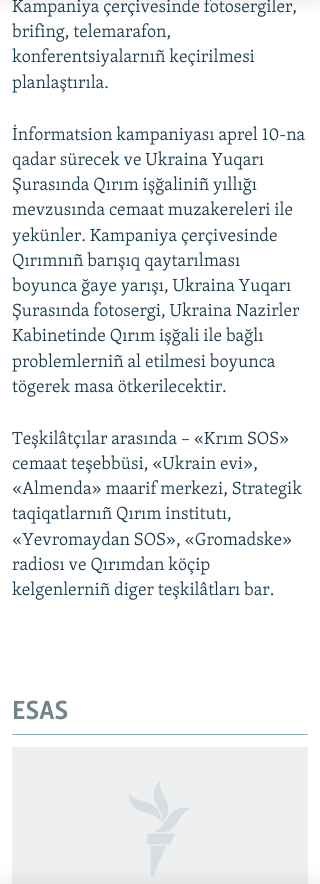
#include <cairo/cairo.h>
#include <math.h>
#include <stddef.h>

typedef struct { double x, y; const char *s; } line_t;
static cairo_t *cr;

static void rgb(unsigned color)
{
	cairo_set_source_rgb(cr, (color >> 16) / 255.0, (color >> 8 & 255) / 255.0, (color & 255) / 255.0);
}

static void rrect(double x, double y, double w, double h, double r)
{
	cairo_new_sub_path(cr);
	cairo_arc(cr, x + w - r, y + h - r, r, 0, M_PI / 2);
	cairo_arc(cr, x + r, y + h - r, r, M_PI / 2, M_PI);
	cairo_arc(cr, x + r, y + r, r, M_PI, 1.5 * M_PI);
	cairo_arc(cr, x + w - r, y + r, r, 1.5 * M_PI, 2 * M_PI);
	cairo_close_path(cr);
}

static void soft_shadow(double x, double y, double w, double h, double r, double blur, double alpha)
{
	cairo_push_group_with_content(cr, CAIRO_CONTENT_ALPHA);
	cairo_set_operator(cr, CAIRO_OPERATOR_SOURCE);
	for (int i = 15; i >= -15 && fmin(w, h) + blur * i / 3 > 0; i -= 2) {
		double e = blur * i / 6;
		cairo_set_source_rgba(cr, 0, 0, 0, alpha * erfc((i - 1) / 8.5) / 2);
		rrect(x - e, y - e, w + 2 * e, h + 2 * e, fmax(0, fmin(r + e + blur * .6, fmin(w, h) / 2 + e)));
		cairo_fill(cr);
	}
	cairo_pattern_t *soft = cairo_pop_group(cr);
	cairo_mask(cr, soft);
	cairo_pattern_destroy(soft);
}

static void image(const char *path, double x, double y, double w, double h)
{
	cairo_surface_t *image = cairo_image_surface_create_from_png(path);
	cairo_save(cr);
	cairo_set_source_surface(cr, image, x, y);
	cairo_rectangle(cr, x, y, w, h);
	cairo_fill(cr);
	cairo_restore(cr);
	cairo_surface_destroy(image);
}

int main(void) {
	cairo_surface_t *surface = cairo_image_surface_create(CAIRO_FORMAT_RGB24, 320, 884);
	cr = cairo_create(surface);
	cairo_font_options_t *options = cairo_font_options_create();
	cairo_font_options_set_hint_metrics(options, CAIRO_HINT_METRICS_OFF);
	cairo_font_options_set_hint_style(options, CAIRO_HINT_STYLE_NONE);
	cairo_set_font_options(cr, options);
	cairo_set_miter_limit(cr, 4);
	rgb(0xffffff);
	cairo_paint(cr);
	rgb(0x000000);
	soft_shadow(0, -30, 320, 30, 0, 10, 0.1);
	rgb(0xedeff0);
	cairo_rectangle(cr, 12, 747, 296, 137);
	cairo_fill(cr);
	image("img/1.png", 128, 780, 63, 97);
	rgb(0x000000);
	soft_shadow(0, 884, 320, 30, 0, 10, 0.1);
	rgb(0x95adb9);
	cairo_rectangle(cr, 12, 734, 296, 1);
	cairo_fill(cr);
	cairo_select_font_face(cr, "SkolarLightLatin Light", CAIRO_FONT_SLANT_NORMAL, CAIRO_FONT_WEIGHT_NORMAL);
	cairo_set_font_size(cr, 18);
	rgb(0x1a3948);
	{
		static const line_t items[] = {
			{12, 12, "Kampaniya çerçivesinde fotosergiler,"},
			{12, 37, "brifing, telemarafon,"},
			{12, 62, "konferentsiyalarnıñ keçirilmesi"},
			{12, 88, "planlaştırıla."},
			{12, 140, "İnformatsion kampaniyası aprel 10-na"},
			{12, 165, "qadar sürecek ve Ukraina Yuqarı"},
			{12, 190, "Şurasında Qırım işğaliniñ yıllığı"},
			{12, 215, "mevzusında cemaat muzakereleri ile"},
			{12, 241, "yekünler. Kampaniya çerçivesinde"},
			{12, 266, "Qırımnıñ barışıq qaytarılması"},
			{12, 291, "boyunca ğaye yarışı, Ukraina Yuqarı"},
			{12, 316, "Şurasında fotosergi, Ukraina Nazirler"},
			{12, 341, "Kabinetinde Qırım işğali ile bağlı"},
			{12, 367, "problemlerniñ al etilmesi boyunca"},
			{12, 392, "tögerek masa ötkerilecektir."},
			{12, 444, "Teşkilâtçılar arasında – «Krım SOS»"},
			{12, 469, "cemaat teşebbüsi, «Ukrain evi»,"},
			{12, 494, "«Almenda» maarif merkezi, Strategik"},
			{12, 519, "taqiqatlarnıñ Qırım institutı,"},
			{12, 545, "«Yevromaydan SOS», «Gromadske»"},
			{12, 570, "radiosı ve Qırımdan köçip"},
			{12, 595, "kelgenlerniñ diger teşkilâtları bar."},
		};
		for (size_t i = 0; i < sizeof items / sizeof *items; i++) {
			cairo_move_to(cr, items[i].x, items[i].y);
			cairo_show_text(cr, items[i].s);
		}
	}
	cairo_select_font_face(cr, "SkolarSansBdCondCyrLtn", CAIRO_FONT_SLANT_NORMAL, CAIRO_FONT_WEIGHT_BOLD);
	cairo_set_font_size(cr, 27);
	rgb(0x71838d);
	cairo_move_to(cr, 12, 719);
	cairo_show_text(cr, "ESAS");
	cairo_surface_write_to_png(surface, "page.png");
	cairo_font_options_destroy(options);
	cairo_destroy(cr);
	cairo_surface_destroy(surface);
	return 0;
}
